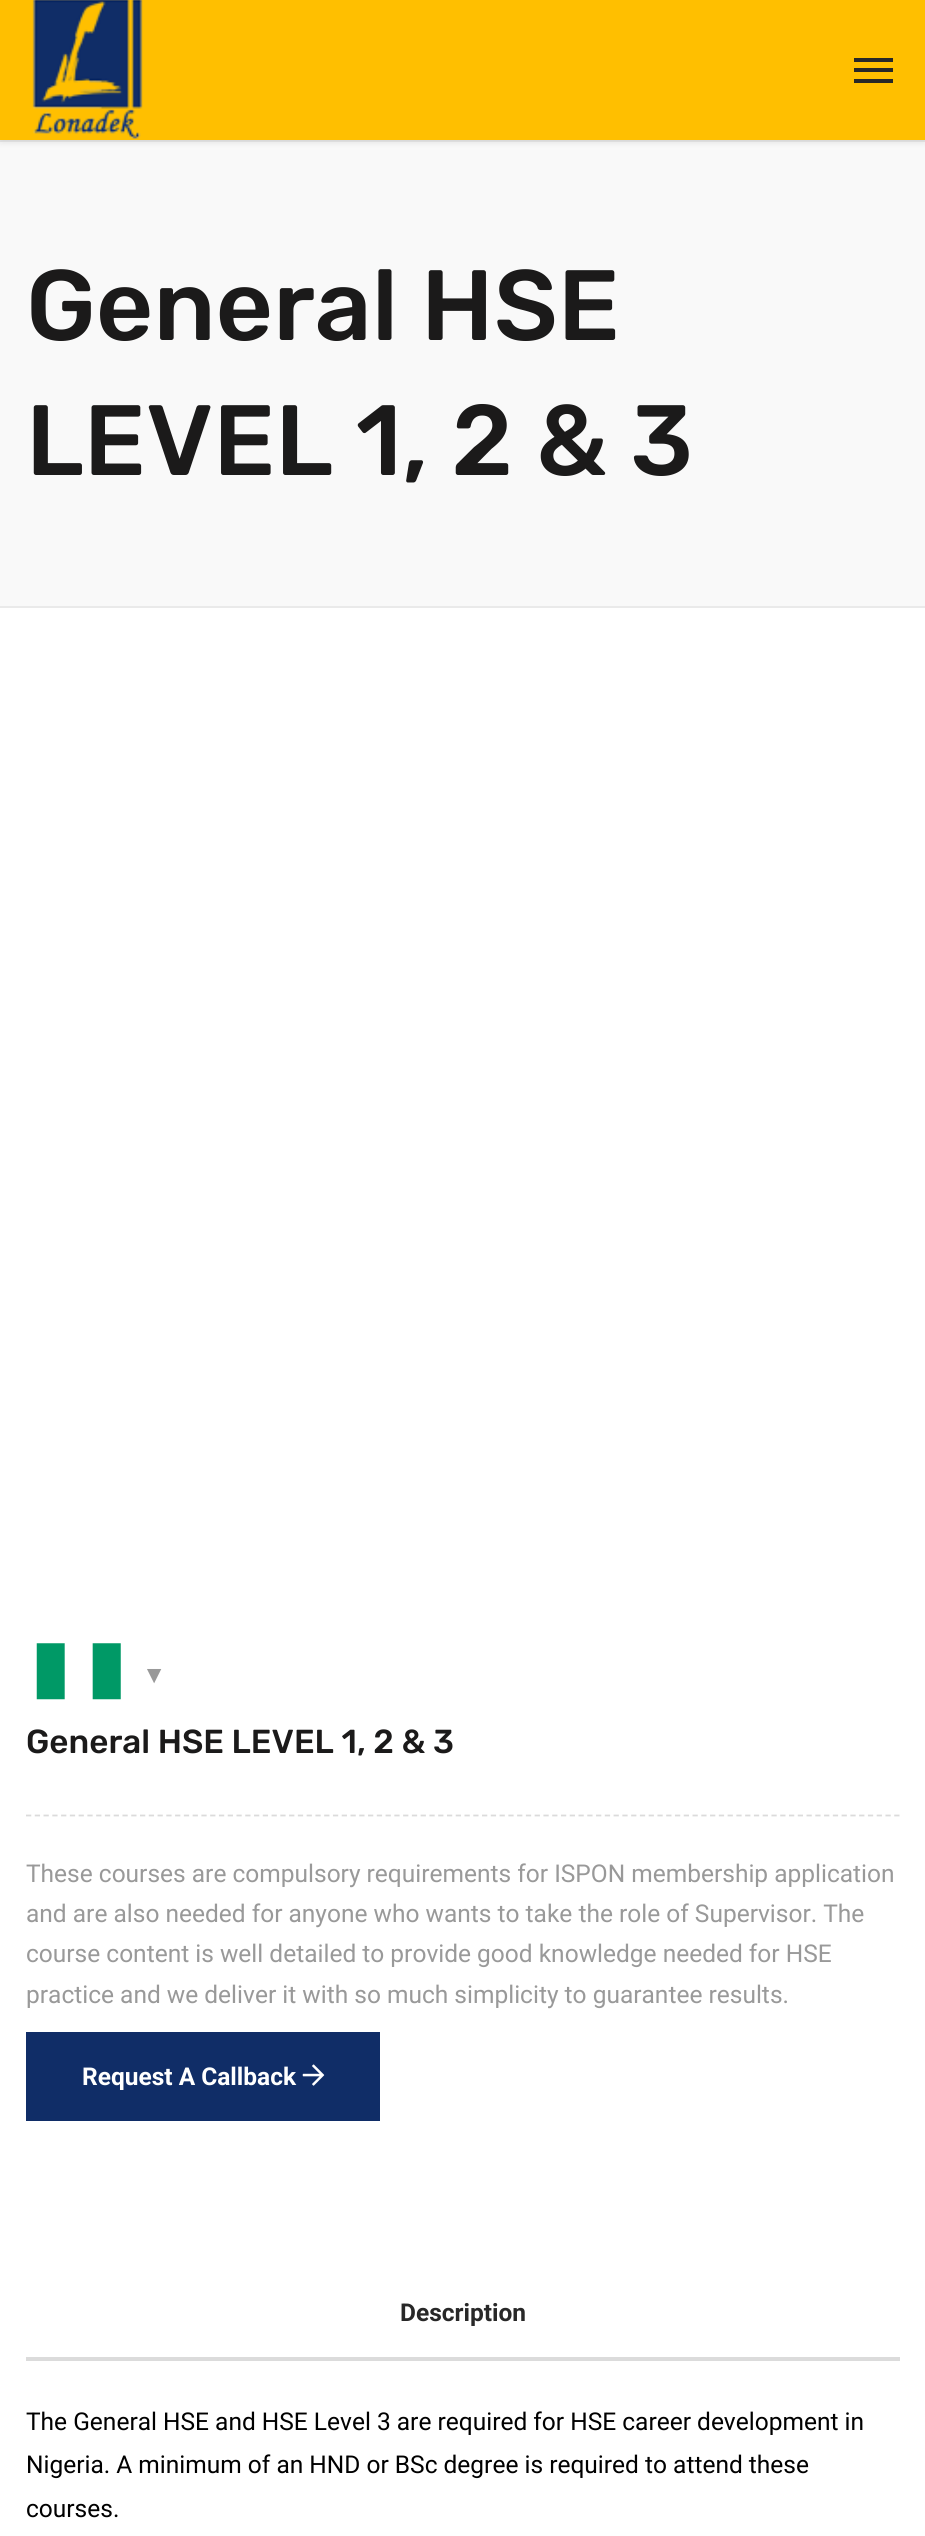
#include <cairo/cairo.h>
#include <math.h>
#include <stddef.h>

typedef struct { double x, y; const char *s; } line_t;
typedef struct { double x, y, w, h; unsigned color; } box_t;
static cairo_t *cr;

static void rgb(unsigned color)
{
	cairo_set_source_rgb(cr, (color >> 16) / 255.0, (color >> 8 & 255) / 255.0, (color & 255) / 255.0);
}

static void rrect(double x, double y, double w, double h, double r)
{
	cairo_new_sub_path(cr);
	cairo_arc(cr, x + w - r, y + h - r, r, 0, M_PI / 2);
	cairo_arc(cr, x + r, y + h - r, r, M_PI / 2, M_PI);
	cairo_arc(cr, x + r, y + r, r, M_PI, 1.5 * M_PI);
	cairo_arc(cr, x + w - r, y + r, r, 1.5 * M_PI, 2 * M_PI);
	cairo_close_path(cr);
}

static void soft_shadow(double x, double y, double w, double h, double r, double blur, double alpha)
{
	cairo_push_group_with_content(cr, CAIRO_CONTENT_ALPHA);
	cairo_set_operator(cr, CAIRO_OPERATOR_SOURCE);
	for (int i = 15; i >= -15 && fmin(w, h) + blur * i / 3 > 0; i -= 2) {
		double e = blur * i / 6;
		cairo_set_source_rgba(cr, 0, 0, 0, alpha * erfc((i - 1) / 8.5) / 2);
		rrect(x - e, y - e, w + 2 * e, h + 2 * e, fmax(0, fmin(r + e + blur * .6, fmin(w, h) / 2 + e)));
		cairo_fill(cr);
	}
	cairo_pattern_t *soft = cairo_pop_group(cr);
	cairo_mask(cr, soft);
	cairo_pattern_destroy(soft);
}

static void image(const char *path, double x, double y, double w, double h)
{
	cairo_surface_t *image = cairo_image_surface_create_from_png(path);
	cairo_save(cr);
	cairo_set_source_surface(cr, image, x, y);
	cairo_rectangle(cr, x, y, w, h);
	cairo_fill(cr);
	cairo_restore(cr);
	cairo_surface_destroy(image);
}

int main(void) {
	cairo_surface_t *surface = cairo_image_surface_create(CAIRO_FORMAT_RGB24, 925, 2536);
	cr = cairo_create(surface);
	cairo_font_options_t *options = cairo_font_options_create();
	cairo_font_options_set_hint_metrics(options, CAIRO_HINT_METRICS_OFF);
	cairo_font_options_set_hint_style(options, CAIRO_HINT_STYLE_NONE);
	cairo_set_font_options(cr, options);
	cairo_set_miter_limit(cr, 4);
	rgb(0xffffff);
	cairo_paint(cr);
	rgb(0xf9f9f9);
	cairo_rectangle(cr, 0, 142, 925, 464);
	cairo_fill(cr);
	rgb(0xeaeaea);
	cairo_rectangle(cr, 0, 140, 925, 2);
	cairo_fill(cr);
	rgb(0x000000);
	soft_shadow(0, 0, 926, 140, 0, 4.5, 0.15);
	rgb(0xffbf00);
	cairo_rectangle(cr, 0, 0, 925, 140);
	cairo_fill(cr);
	image("img/1.png", 32, 0, 111, 139);
	{
		static const box_t items[] = {
			{854, 58, 39, 4, 0x282828},
			{854, 68, 39, 4, 0x282828},
			{854, 79, 39, 4, 0x282828},
			{0, 606, 925, 2, 0xeaeaea},
		};
		for (size_t i = 0; i < sizeof items / sizeof *items; i++) {
			rgb(items[i].color);
			cairo_rectangle(cr, items[i].x, items[i].y, items[i].w, items[i].h);
			cairo_fill(cr);
		}
	}
	image("img/2.png", 36, 1643, 85, 57);
	cairo_new_path(cr);
	cairo_move_to(cr, 26, 1815.5);
	cairo_line_to(cr, 899.5, 1815.5);
	rgb(0xdbdbdb);
	cairo_set_line_width(cr, 1.8);
	cairo_set_dash(cr, (double[]){5.25, 3.52}, 2, 0);
	cairo_stroke(cr);
	rgb(0x102d67);
	cairo_rectangle(cr, 28, 2034, 350, 85);
	cairo_fill_preserve(cr);
	cairo_set_line_width(cr, 4);
	cairo_set_dash(cr, NULL, 0, 0);
	cairo_stroke(cr);
	image("img/3.png", 302, 2064, 23, 22);
	rgb(0xdbdbdb);
	cairo_rectangle(cr, 26, 2357, 874, 4);
	cairo_fill(cr);
	cairo_select_font_face(cr, "Rubik Medium", CAIRO_FONT_SLANT_NORMAL, CAIRO_FONT_WEIGHT_NORMAL);
	cairo_set_font_size(cr, 99.75);
	rgb(0x1b1a1a);
	cairo_move_to(cr, 26, 340);
	cairo_show_text(cr, "General HSE");
	cairo_move_to(cr, 26, 475);
	cairo_show_text(cr, "LEVEL 1, 2 & 3");
	cairo_select_font_face(cr, "Liberation Sans", CAIRO_FONT_SLANT_NORMAL, CAIRO_FONT_WEIGHT_NORMAL);
	cairo_set_font_size(cr, 24.5);
	rgb(0x999999);
	cairo_move_to(cr, 142, 1683);
	cairo_show_text(cr, "▼");
	cairo_select_font_face(cr, "Rubik Medium", CAIRO_FONT_SLANT_NORMAL, CAIRO_FONT_WEIGHT_NORMAL);
	cairo_set_font_size(cr, 33.25);
	rgb(0x1b1a1a);
	cairo_move_to(cr, 26, 1753);
	cairo_show_text(cr, "General HSE LEVEL 1, 2 & 3");
	cairo_select_font_face(cr, "Roboto", CAIRO_FONT_SLANT_NORMAL, CAIRO_FONT_WEIGHT_NORMAL);
	cairo_set_font_size(cr, 24.5);
	rgb(0x999999);
	{
		static const line_t items[] = {
			{26, 1882, "These courses are compulsory requirements for ISPON membership application"},
			{26, 1922, "and are also needed for anyone who wants to take the role of Supervisor. The"},
			{26, 1962, "course content is well detailed to provide good knowledge needed for HSE"},
			{26, 2003, "practice and we deliver it with so much simplicity to guarantee results."},
		};
		for (size_t i = 0; i < sizeof items / sizeof *items; i++) {
			cairo_move_to(cr, items[i].x, items[i].y);
			cairo_show_text(cr, items[i].s);
		}
	}
	cairo_select_font_face(cr, "Roboto", CAIRO_FONT_SLANT_NORMAL, CAIRO_FONT_WEIGHT_BOLD);
	rgb(0xffffff);
	cairo_move_to(cr, 82, 2085);
	cairo_show_text(cr, "Request A Callback");
	rgb(0x282828);
	cairo_move_to(cr, 400, 2321);
	cairo_show_text(cr, "Description");
	cairo_select_font_face(cr, "Roboto", CAIRO_FONT_SLANT_NORMAL, CAIRO_FONT_WEIGHT_NORMAL);
	rgb(0x000000);
	{
		static const line_t items[] = {
			{26, 2430, "The General HSE and HSE Level 3 are required for HSE career development in"},
			{26, 2473, "Nigeria. A minimum of an HND or BSc degree is required to attend these"},
			{26, 2517, "courses."},
		};
		for (size_t i = 0; i < sizeof items / sizeof *items; i++) {
			cairo_move_to(cr, items[i].x, items[i].y);
			cairo_show_text(cr, items[i].s);
		}
	}
	cairo_surface_write_to_png(surface, "page.png");
	cairo_font_options_destroy(options);
	cairo_destroy(cr);
	cairo_surface_destroy(surface);
	return 0;
}
